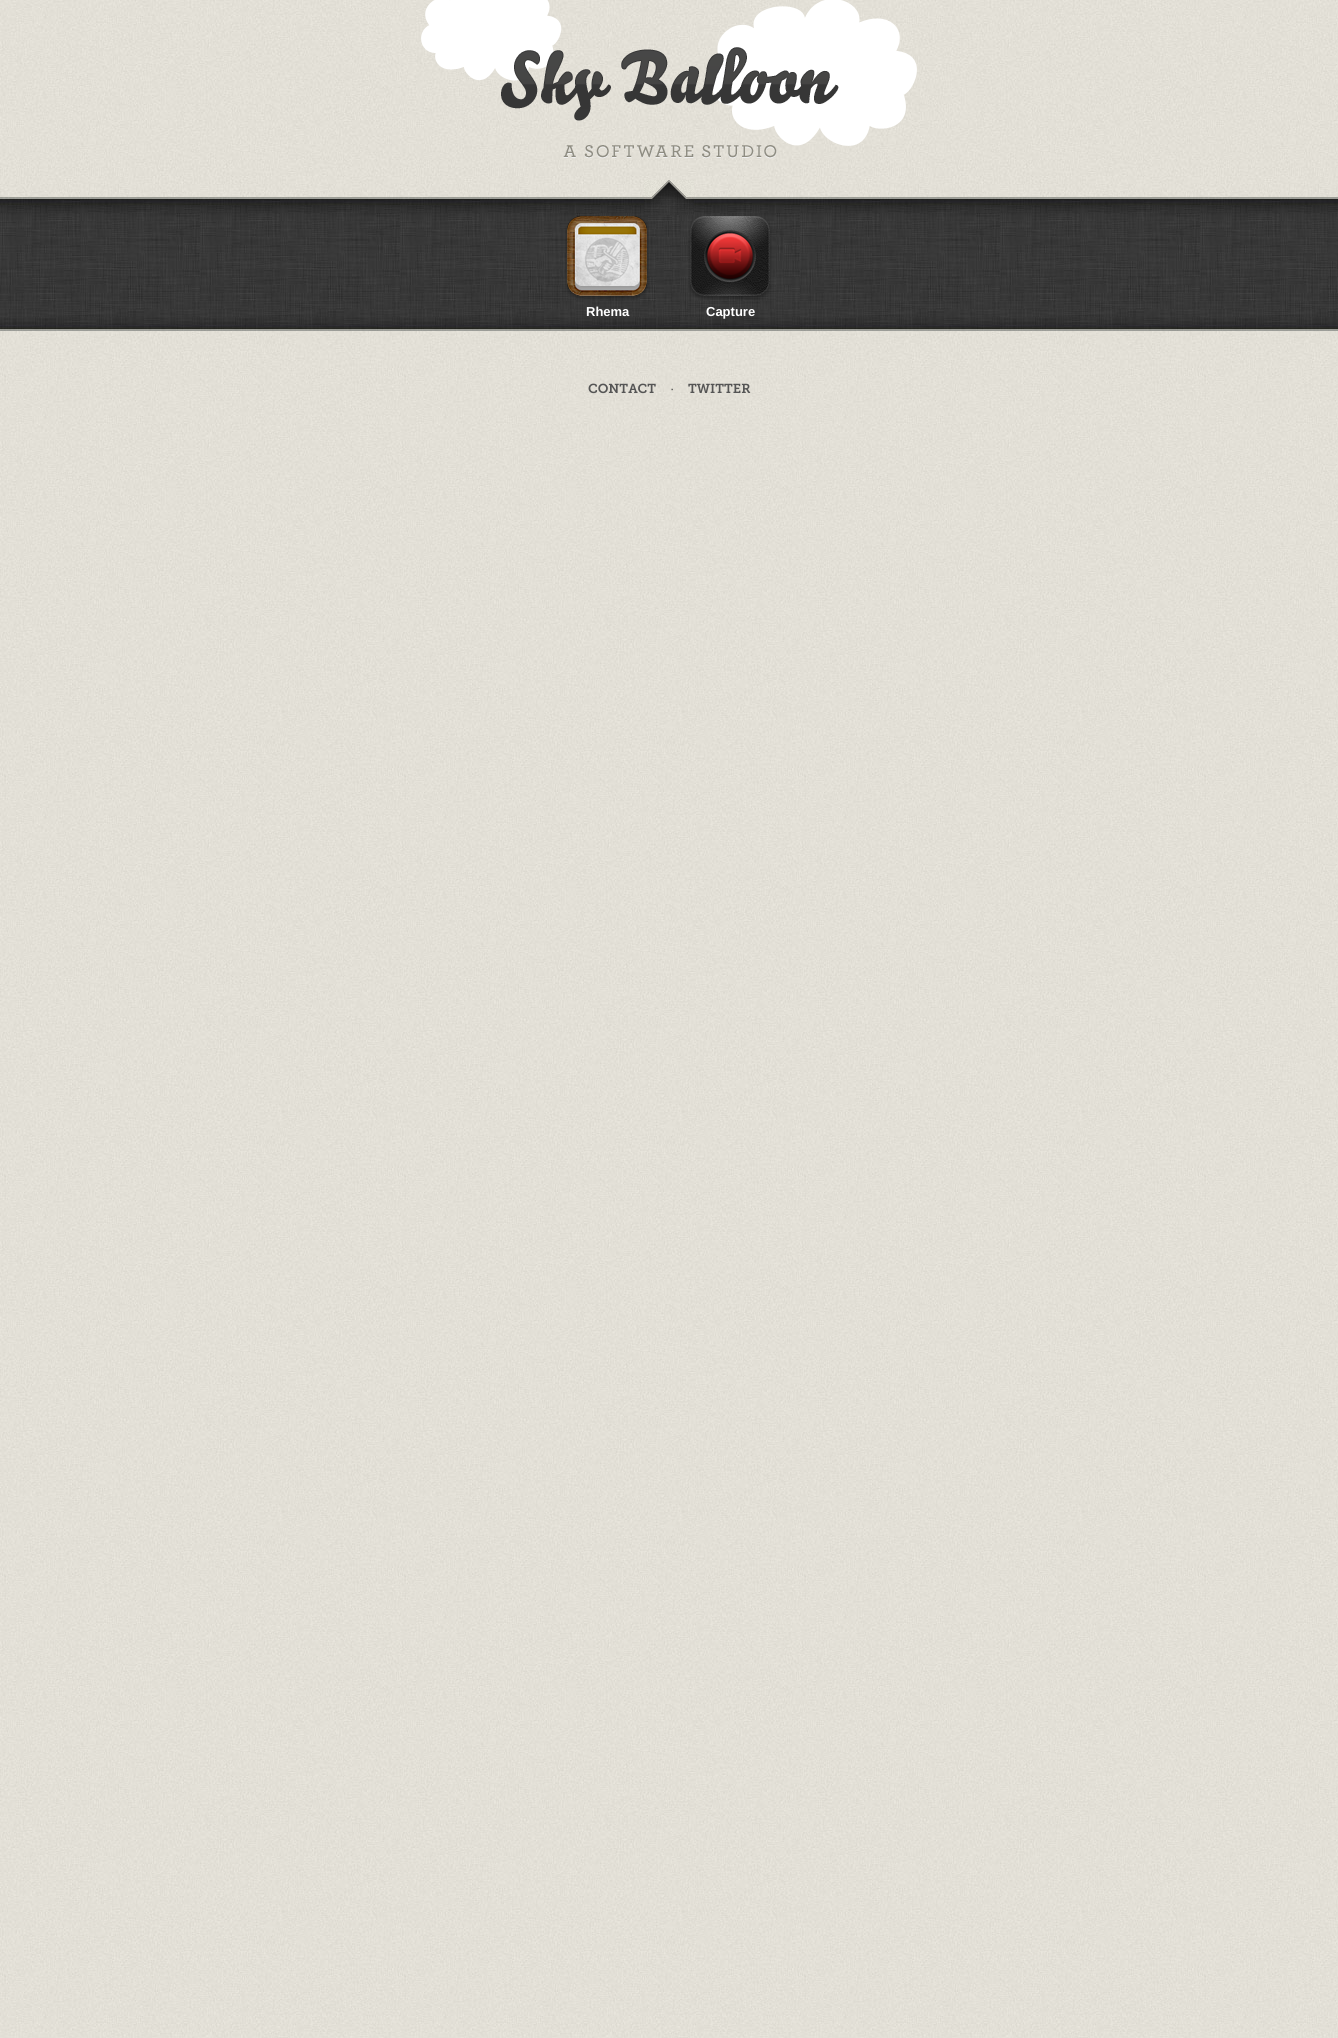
#include <cairo/cairo.h>
#include <math.h>
#include <stddef.h>

static cairo_t *cr;

static void rgb(unsigned color)
{
	cairo_set_source_rgb(cr, (color >> 16) / 255.0, (color >> 8 & 255) / 255.0, (color & 255) / 255.0);
}

static void image(const char *path, double x, double y, double w, double h)
{
	cairo_surface_t *image = cairo_image_surface_create_from_png(path);
	cairo_save(cr);
	cairo_set_source_surface(cr, image, x, y);
	cairo_rectangle(cr, x, y, w, h);
	cairo_fill(cr);
	cairo_restore(cr);
	cairo_surface_destroy(image);
}

int main(void) {
	cairo_surface_t *surface = cairo_image_surface_create(CAIRO_FORMAT_RGB24, 1338, 2038);
	cr = cairo_create(surface);
	cairo_font_options_t *options = cairo_font_options_create();
	cairo_font_options_set_hint_metrics(options, CAIRO_HINT_METRICS_OFF);
	cairo_font_options_set_hint_style(options, CAIRO_HINT_STYLE_NONE);
	cairo_set_font_options(cr, options);
	cairo_set_miter_limit(cr, 4);
	rgb(0xffffff);
	cairo_paint(cr);
	image("img/1.png", 0, 0, 1338, 2038);
	image("img/2.png", 421, 0, 496, 159);
	image("img/3.png", 0, 197, 1338, 134);
	image("img/4.png", 644, 180, 50, 35);
	image("img/5.png", 565, 216, 84, 84);
	image("img/6.png", 688, 216, 84, 84);
	cairo_select_font_face(cr, "Liberation Sans", CAIRO_FONT_SLANT_NORMAL, CAIRO_FONT_WEIGHT_BOLD);
	cairo_set_font_size(cr, 13);
	rgb(0xffffff);
	cairo_move_to(cr, 586, 316);
	cairo_show_text(cr, "Rhema");
	cairo_move_to(cr, 706, 316);
	cairo_show_text(cr, "Capture");
	cairo_select_font_face(cr, "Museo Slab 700 SemiBold", CAIRO_FONT_SLANT_NORMAL, CAIRO_FONT_WEIGHT_NORMAL);
	rgb(0x555555);
	cairo_move_to(cr, 588, 393);
	cairo_show_text(cr, "CONTACT");
	cairo_select_font_face(cr, "Liberation Sans", CAIRO_FONT_SLANT_NORMAL, CAIRO_FONT_WEIGHT_NORMAL);
	rgb(0x444444);
	cairo_move_to(cr, 670, 393);
	cairo_show_text(cr, "·");
	cairo_select_font_face(cr, "Museo Slab 700 SemiBold", CAIRO_FONT_SLANT_NORMAL, CAIRO_FONT_WEIGHT_NORMAL);
	rgb(0x555555);
	cairo_move_to(cr, 688, 393);
	cairo_show_text(cr, "TWITTER");
	cairo_surface_write_to_png(surface, "page.png");
	cairo_font_options_destroy(options);
	cairo_destroy(cr);
	cairo_surface_destroy(surface);
	return 0;
}
